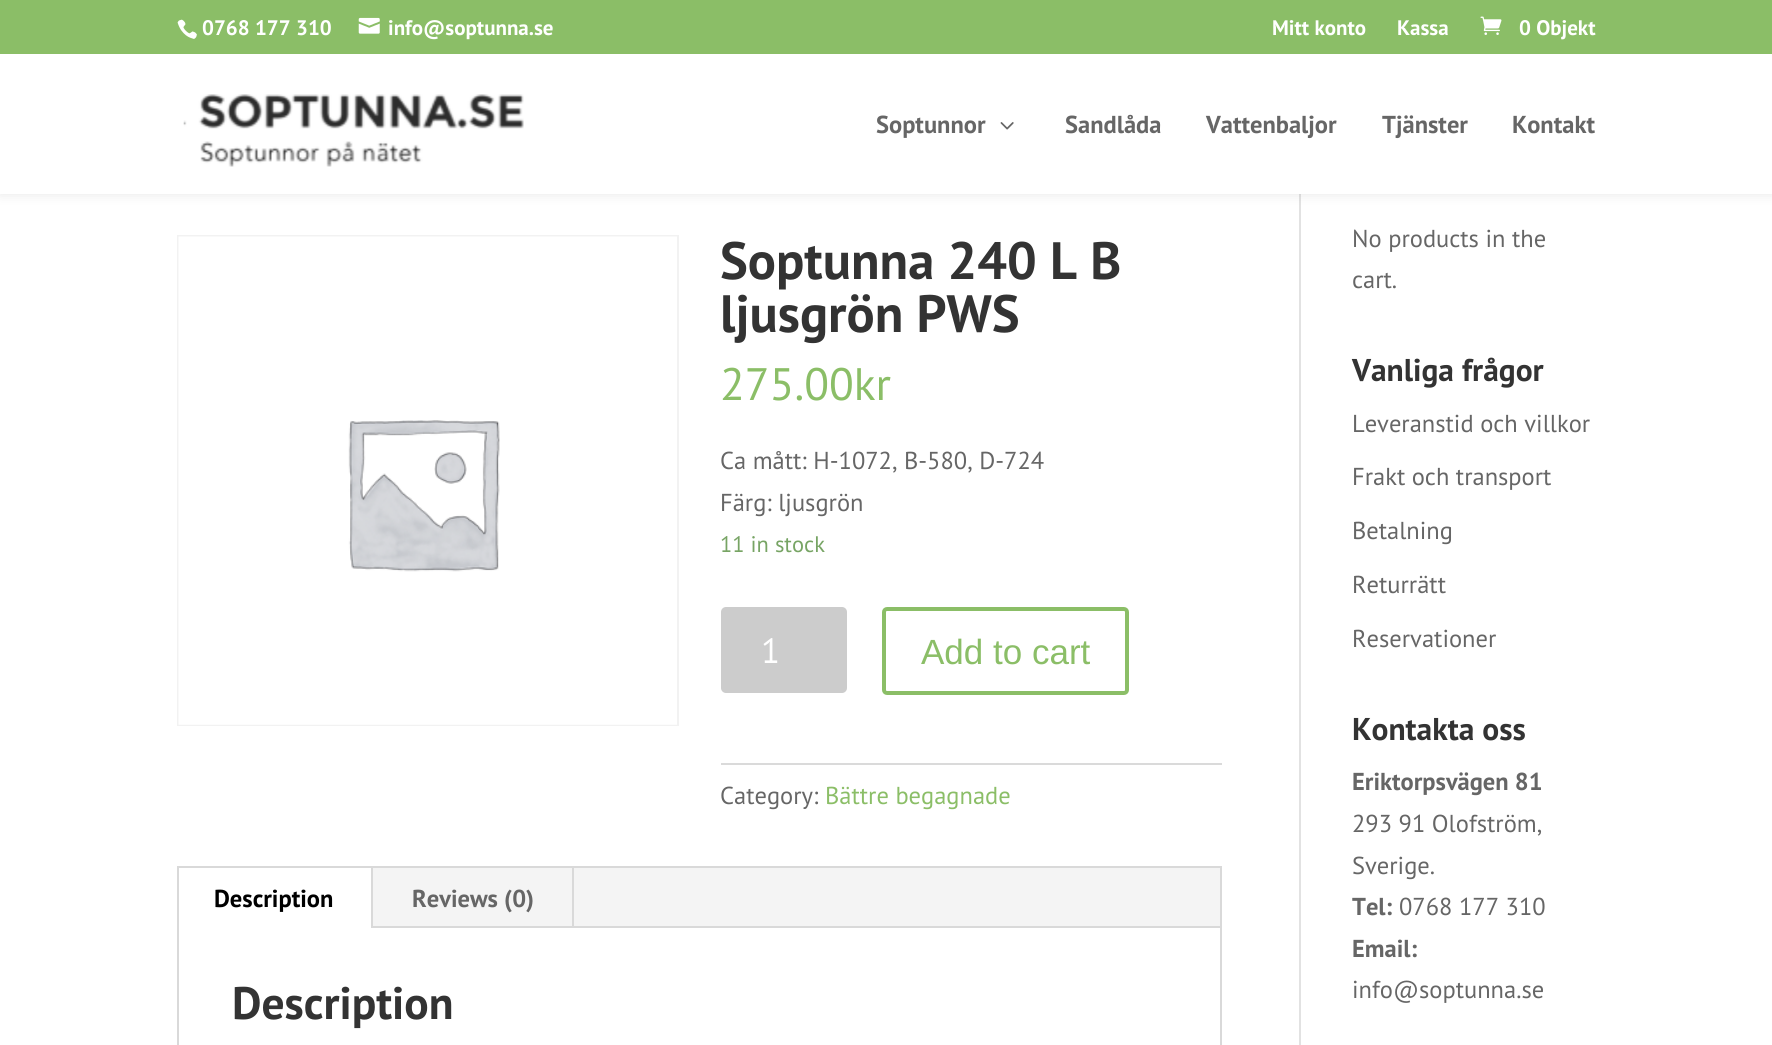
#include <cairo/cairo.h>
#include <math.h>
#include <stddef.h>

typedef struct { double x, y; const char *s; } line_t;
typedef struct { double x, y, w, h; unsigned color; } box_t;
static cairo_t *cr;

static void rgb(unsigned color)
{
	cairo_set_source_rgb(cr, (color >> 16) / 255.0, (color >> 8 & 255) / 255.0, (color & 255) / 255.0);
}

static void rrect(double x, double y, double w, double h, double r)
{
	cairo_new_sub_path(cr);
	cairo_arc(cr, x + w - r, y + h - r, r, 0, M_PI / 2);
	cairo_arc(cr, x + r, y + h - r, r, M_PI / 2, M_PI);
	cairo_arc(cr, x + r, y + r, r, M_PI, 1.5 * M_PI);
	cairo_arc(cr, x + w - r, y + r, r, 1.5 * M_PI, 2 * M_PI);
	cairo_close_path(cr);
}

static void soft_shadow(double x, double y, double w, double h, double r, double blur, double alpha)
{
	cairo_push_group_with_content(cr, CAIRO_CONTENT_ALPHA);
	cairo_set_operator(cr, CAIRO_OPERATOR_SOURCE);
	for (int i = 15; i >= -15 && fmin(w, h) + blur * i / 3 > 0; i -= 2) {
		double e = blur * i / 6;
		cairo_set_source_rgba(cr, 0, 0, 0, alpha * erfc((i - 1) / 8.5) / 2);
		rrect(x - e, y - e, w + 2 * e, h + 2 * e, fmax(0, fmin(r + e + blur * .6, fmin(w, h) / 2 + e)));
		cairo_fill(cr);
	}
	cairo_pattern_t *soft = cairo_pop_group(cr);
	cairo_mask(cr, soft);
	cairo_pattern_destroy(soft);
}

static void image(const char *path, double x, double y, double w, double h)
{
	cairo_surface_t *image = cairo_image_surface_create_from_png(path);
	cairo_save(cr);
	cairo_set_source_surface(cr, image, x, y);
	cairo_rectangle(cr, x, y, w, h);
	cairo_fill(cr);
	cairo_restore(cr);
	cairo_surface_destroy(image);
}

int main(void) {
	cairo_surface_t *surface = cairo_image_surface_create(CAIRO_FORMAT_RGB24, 1772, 1045);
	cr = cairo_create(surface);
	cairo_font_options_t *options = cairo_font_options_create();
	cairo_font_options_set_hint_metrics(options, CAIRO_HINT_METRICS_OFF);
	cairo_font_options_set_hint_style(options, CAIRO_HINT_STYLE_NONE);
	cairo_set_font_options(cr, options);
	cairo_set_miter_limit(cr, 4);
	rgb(0xffffff);
	cairo_paint(cr);
	rgb(0xe2e2e2);
	cairo_rectangle(cr, 1299, 194, 2, 851);
	cairo_fill(cr);
	rgb(0x000000);
	soft_shadow(0, 54, 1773, 140, 0, 6, 0.1);
	rgb(0x8bbe67);
	cairo_rectangle(cr, 0, 0, 1772, 54);
	cairo_fill(cr);
	image("img/1.png", 177, 19, 20, 20);
	image("img/2.png", 358, 17, 22, 17);
	image("img/3.png", 1480, 16, 22, 19);
	rgb(0xffffff);
	cairo_rectangle(cr, 0, 54, 1772, 140);
	cairo_fill(cr);
	image("img/4.png", 183, 94, 341, 73);
	image("img/5.png", 1000, 122, 14, 8);
	cairo_rectangle(cr, 178, 236, 500, 489);
	rgb(0xf2f2f2);
	cairo_stroke(cr);
	image("img/6.png", 178, 236, 499, 489);
	rgb(0xcccccc);
	rrect(721, 607, 126, 86, 5);
	cairo_fill(cr);
	rrect(884, 609, 243, 84, 3);
	rgb(0x8bbe67);
	cairo_set_line_width(cr, 4);
	cairo_stroke(cr);
	rgb(0xdadada);
	cairo_rectangle(cr, 721, 763, 501, 2);
	cairo_fill(cr);
	cairo_rectangle(cr, 178, 867, 1043, 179);
	rgb(0xd9d9d9);
	cairo_set_line_width(cr, 2);
	cairo_stroke(cr);
	{
		static const box_t items[] = {
			{373, 868, 847, 58, 0xf4f4f4},
			{371, 868, 2, 60, 0xd9d9d9},
			{572, 868, 2, 60, 0xd9d9d9},
			{373, 926, 847, 2, 0xd9d9d9},
		};
		for (size_t i = 0; i < sizeof items / sizeof *items; i++) {
			rgb(items[i].color);
			cairo_rectangle(cr, items[i].x, items[i].y, items[i].w, items[i].h);
			cairo_fill(cr);
		}
	}
	cairo_select_font_face(cr, "PT Sans", CAIRO_FONT_SLANT_NORMAL, CAIRO_FONT_WEIGHT_BOLD);
	cairo_set_font_size(cr, 21);
	rgb(0xffffff);
	{
		static const line_t items[] = {
			{202, 35, "0768 177 310"},
			{388, 35, "info@soptunna.se"},
			{1272, 35, "Mitt konto"},
			{1397, 35, "Kassa"},
			{1519, 35, "0 Objekt"},
		};
		for (size_t i = 0; i < sizeof items / sizeof *items; i++) {
			cairo_move_to(cr, items[i].x, items[i].y);
			cairo_show_text(cr, items[i].s);
		}
	}
	cairo_set_font_size(cr, 24.5);
	rgb(0x666666);
	{
		static const line_t items[] = {
			{876, 133, "Soptunnor"},
			{1065, 133, "Sandlåda"},
			{1206, 133, "Vattenbaljor"},
			{1382, 133, "Tjänster"},
			{1512, 133, "Kontakt"},
		};
		for (size_t i = 0; i < sizeof items / sizeof *items; i++) {
			cairo_move_to(cr, items[i].x, items[i].y);
			cairo_show_text(cr, items[i].s);
		}
	}
	cairo_set_font_size(cr, 52.5);
	rgb(0x333333);
	cairo_move_to(cr, 720, 279);
	cairo_show_text(cr, "Soptunna 240 L B");
	cairo_move_to(cr, 720, 332);
	cairo_show_text(cr, "ljusgrön PWS");
	cairo_select_font_face(cr, "PT Sans", CAIRO_FONT_SLANT_NORMAL, CAIRO_FONT_WEIGHT_NORMAL);
	cairo_set_font_size(cr, 45.5);
	rgb(0x8bbe67);
	cairo_move_to(cr, 720, 400);
	cairo_show_text(cr, "275.00kr");
	cairo_set_font_size(cr, 24.5);
	rgb(0x666666);
	cairo_move_to(cr, 720, 469);
	cairo_show_text(cr, "Ca mått: H-1072, B-580, D-724");
	cairo_move_to(cr, 720, 511);
	cairo_show_text(cr, "Färg: ljusgrön");
	cairo_set_font_size(cr, 22.5);
	rgb(0x77a464);
	cairo_move_to(cr, 720, 552);
	cairo_show_text(cr, "11 in stock");
	cairo_set_font_size(cr, 35);
	rgb(0xffffff);
	cairo_move_to(cr, 761, 663);
	cairo_show_text(cr, "1");
	cairo_select_font_face(cr, "Liberation Sans", CAIRO_FONT_SLANT_NORMAL, CAIRO_FONT_WEIGHT_NORMAL);
	rgb(0x8bbe67);
	cairo_move_to(cr, 921, 664);
	cairo_show_text(cr, "Add to cart");
	cairo_select_font_face(cr, "PT Sans", CAIRO_FONT_SLANT_NORMAL, CAIRO_FONT_WEIGHT_NORMAL);
	cairo_set_font_size(cr, 24.5);
	rgb(0x666666);
	cairo_move_to(cr, 720, 804);
	cairo_show_text(cr, "Category:");
	rgb(0x8bbe67);
	cairo_move_to(cr, 825, 804);
	cairo_show_text(cr, "Bättre begagnade");
	cairo_select_font_face(cr, "PT Sans", CAIRO_FONT_SLANT_NORMAL, CAIRO_FONT_WEIGHT_BOLD);
	rgb(0x000000);
	cairo_move_to(cr, 214, 907);
	cairo_show_text(cr, "Description");
	rgb(0x666666);
	cairo_move_to(cr, 412, 907);
	cairo_show_text(cr, "Reviews (0)");
	cairo_set_font_size(cr, 45.5);
	rgb(0x333333);
	cairo_move_to(cr, 232, 1019);
	cairo_show_text(cr, "Description");
	cairo_select_font_face(cr, "PT Sans", CAIRO_FONT_SLANT_NORMAL, CAIRO_FONT_WEIGHT_NORMAL);
	cairo_set_font_size(cr, 24.5);
	rgb(0x666666);
	cairo_move_to(cr, 1352, 247);
	cairo_show_text(cr, "No products in the");
	cairo_move_to(cr, 1352, 288);
	cairo_show_text(cr, "cart.");
	cairo_select_font_face(cr, "PT Sans", CAIRO_FONT_SLANT_NORMAL, CAIRO_FONT_WEIGHT_BOLD);
	cairo_set_font_size(cr, 31.5);
	rgb(0x333333);
	cairo_move_to(cr, 1352, 381);
	cairo_show_text(cr, "Vanliga frågor");
	cairo_select_font_face(cr, "PT Sans", CAIRO_FONT_SLANT_NORMAL, CAIRO_FONT_WEIGHT_NORMAL);
	cairo_set_font_size(cr, 24.5);
	rgb(0x666666);
	{
		static const line_t items[] = {
			{1352, 432, "Leveranstid och villkor"},
			{1352, 485, "Frakt och transport"},
			{1352, 539, "Betalning"},
			{1352, 593, "Returrätt"},
			{1352, 647, "Reservationer"},
		};
		for (size_t i = 0; i < sizeof items / sizeof *items; i++) {
			cairo_move_to(cr, items[i].x, items[i].y);
			cairo_show_text(cr, items[i].s);
		}
	}
	cairo_select_font_face(cr, "PT Sans", CAIRO_FONT_SLANT_NORMAL, CAIRO_FONT_WEIGHT_BOLD);
	cairo_set_font_size(cr, 31.5);
	rgb(0x333333);
	cairo_move_to(cr, 1352, 740);
	cairo_show_text(cr, "Kontakta oss");
	cairo_set_font_size(cr, 24.5);
	rgb(0x666666);
	cairo_move_to(cr, 1352, 790);
	cairo_show_text(cr, "Eriktorpsvägen 81");
	cairo_select_font_face(cr, "PT Sans", CAIRO_FONT_SLANT_NORMAL, CAIRO_FONT_WEIGHT_NORMAL);
	cairo_move_to(cr, 1352, 832);
	cairo_show_text(cr, "293 91 Olofström,");
	cairo_move_to(cr, 1352, 874);
	cairo_show_text(cr, "Sverige.");
	cairo_select_font_face(cr, "PT Sans", CAIRO_FONT_SLANT_NORMAL, CAIRO_FONT_WEIGHT_BOLD);
	cairo_move_to(cr, 1352, 915);
	cairo_show_text(cr, "Tel:");
	cairo_select_font_face(cr, "PT Sans", CAIRO_FONT_SLANT_NORMAL, CAIRO_FONT_WEIGHT_NORMAL);
	cairo_move_to(cr, 1399, 915);
	cairo_show_text(cr, "0768 177 310");
	cairo_select_font_face(cr, "PT Sans", CAIRO_FONT_SLANT_NORMAL, CAIRO_FONT_WEIGHT_BOLD);
	cairo_move_to(cr, 1352, 957);
	cairo_show_text(cr, "Email:");
	cairo_select_font_face(cr, "PT Sans", CAIRO_FONT_SLANT_NORMAL, CAIRO_FONT_WEIGHT_NORMAL);
	cairo_move_to(cr, 1352, 998);
	cairo_show_text(cr, "info@soptunna.se");
	cairo_surface_write_to_png(surface, "page.png");
	cairo_font_options_destroy(options);
	cairo_destroy(cr);
	cairo_surface_destroy(surface);
	return 0;
}
